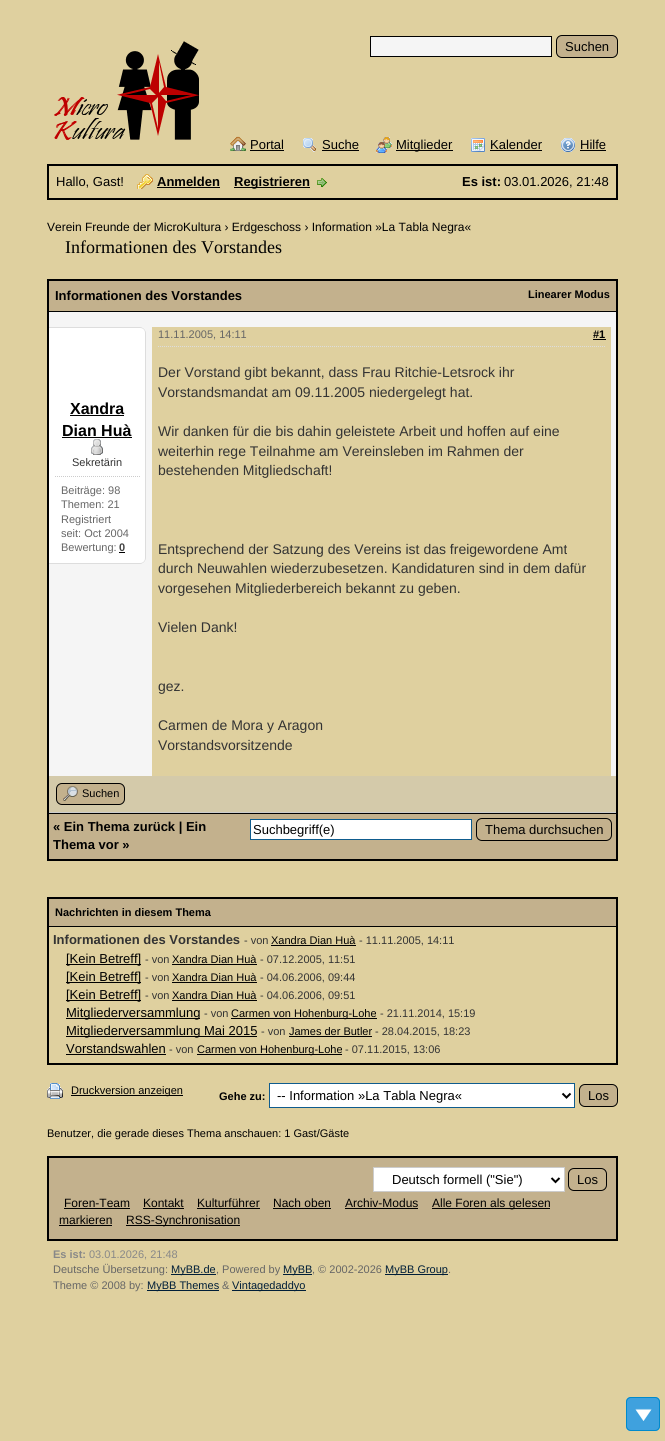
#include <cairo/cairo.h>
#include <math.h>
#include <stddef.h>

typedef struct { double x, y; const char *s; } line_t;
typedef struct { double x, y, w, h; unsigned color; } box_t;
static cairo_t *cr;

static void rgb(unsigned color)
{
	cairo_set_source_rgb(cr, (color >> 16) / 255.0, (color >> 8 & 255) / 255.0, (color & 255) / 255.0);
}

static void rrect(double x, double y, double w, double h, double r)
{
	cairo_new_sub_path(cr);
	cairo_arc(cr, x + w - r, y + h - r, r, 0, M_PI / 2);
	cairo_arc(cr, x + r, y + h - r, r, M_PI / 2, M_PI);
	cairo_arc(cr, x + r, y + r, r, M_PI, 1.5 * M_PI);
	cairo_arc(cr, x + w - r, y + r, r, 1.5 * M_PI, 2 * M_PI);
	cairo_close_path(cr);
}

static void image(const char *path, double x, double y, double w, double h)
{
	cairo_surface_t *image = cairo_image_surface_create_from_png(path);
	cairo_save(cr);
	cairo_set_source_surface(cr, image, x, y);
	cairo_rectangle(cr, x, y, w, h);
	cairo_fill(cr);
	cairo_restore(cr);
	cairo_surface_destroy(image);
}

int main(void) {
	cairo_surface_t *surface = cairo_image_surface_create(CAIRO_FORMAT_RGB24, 665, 1441);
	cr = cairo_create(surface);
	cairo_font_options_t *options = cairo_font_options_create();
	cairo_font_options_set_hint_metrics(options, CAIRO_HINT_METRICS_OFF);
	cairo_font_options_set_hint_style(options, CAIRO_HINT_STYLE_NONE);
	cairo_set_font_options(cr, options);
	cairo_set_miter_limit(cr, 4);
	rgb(0xdfd09f);
	cairo_paint(cr);
	rgb(0xf5f5f5);
	cairo_rectangle(cr, 370.5, 36.5, 181, 20);
	cairo_fill_preserve(cr);
	rgb(0x000000);
	cairo_set_line_width(cr, 1);
	cairo_stroke(cr);
	rgb(0xc3b18d);
	rrect(556.5, 35.5, 61, 22, 5.5);
	cairo_fill_preserve(cr);
	rgb(0x000000);
	cairo_stroke(cr);
	image("img/1.png", 54, 41, 145, 99);
	image("img/2.png", 230, 136, 16, 15);
	cairo_rectangle(cr, 250, 150, 34, 1);
	cairo_fill(cr);
	image("img/3.png", 303, 138, 13, 14);
	cairo_rectangle(cr, 322, 150, 37, 1);
	cairo_fill(cr);
	image("img/4.png", 376, 137, 16, 16);
	cairo_rectangle(cr, 396, 150, 57, 1);
	cairo_fill(cr);
	image("img/5.png", 471, 138, 14, 14);
	cairo_rectangle(cr, 490, 150, 52, 1);
	cairo_fill(cr);
	image("img/6.png", 561, 138, 14, 14);
	cairo_rectangle(cr, 580, 150, 26, 1);
	cairo_fill(cr);
	cairo_rectangle(cr, 48, 165, 569, 34);
	cairo_set_line_width(cr, 2);
	cairo_stroke(cr);
	image("img/7.png", 137, 174, 16, 15);
	cairo_rectangle(cr, 157, 187, 63, 1);
	cairo_fill(cr);
	cairo_rectangle(cr, 234, 187, 76, 1);
	cairo_fill(cr);
	image("img/8.png", 317, 178, 10, 10);
	{
		static const box_t items[] = {
			{47, 279, 571, 582, 0x000000},
			{49, 281, 567, 30, 0xc3b18d},
			{49, 312, 567, 464, 0xf5f5f5},
		};
		for (size_t i = 0; i < sizeof items / sizeof *items; i++) {
			rgb(items[i].color);
			cairo_rectangle(cr, items[i].x, items[i].y, items[i].w, items[i].h);
			cairo_fill(cr);
		}
	}
	rgb(0xffffff);
	cairo_new_path(cr);
	cairo_move_to(cr, 49, 327);
	cairo_line_to(cr, 140, 327);
	cairo_curve_to(cr, 143.5, 327, 146, 329.5, 146, 333);
	cairo_line_to(cr, 146, 558);
	cairo_curve_to(cr, 146, 561.5, 143.5, 564, 140, 564);
	cairo_line_to(cr, 49, 564);
	cairo_close_path(cr);
	cairo_fill(cr);
	rgb(0xdddddd);
	cairo_set_fill_rule(cr, CAIRO_FILL_RULE_EVEN_ODD);
	cairo_new_path(cr);
	cairo_move_to(cr, 49, 327);
	cairo_line_to(cr, 140, 327);
	cairo_curve_to(cr, 143, 327, 146, 330, 146, 333);
	cairo_line_to(cr, 146, 558);
	cairo_curve_to(cr, 146, 561, 143, 564, 140, 564);
	cairo_line_to(cr, 49, 564);
	cairo_close_path(cr);
	cairo_move_to(cr, 49, 328);
	cairo_line_to(cr, 140, 328);
	cairo_curve_to(cr, 143, 328, 145, 330, 145, 333);
	cairo_line_to(cr, 145, 558);
	cairo_curve_to(cr, 145, 561, 143, 563, 140, 563);
	cairo_line_to(cr, 49, 563);
	cairo_close_path(cr);
	cairo_fill(cr);
	rgb(0x000000);
	cairo_rectangle(cr, 70, 415, 54, 1);
	cairo_fill(cr);
	cairo_rectangle(cr, 62, 437, 70, 1);
	cairo_fill(cr);
	image("img/9.png", 91, 439, 12, 16);
	cairo_new_path(cr);
	cairo_move_to(cr, 55, 476.5);
	cairo_line_to(cr, 140, 476.5);
	rgb(0xcccccc);
	cairo_set_line_width(cr, 1);
	cairo_set_dash(cr, (double[]){1, 1}, 2, 0);
	cairo_stroke(cr);
	rgb(0x000000);
	cairo_rectangle(cr, 119, 552, 6, 1);
	cairo_fill(cr);
	rgb(0xdfd09f);
	cairo_rectangle(cr, 152, 327, 459, 449);
	cairo_fill(cr);
	cairo_new_path(cr);
	cairo_move_to(cr, 158, 346.5);
	cairo_line_to(cr, 606, 346.5);
	rgb(0xdddddd);
	cairo_stroke(cr);
	{
		static const box_t items[] = {
			{593, 339, 13, 1, 0x000000},
			{49, 776, 567, 36, 0xd4caaa},
			{49, 812, 567, 1, 0xcccccc},
		};
		for (size_t i = 0; i < sizeof items / sizeof *items; i++) {
			rgb(items[i].color);
			cairo_rectangle(cr, items[i].x, items[i].y, items[i].w, items[i].h);
			cairo_fill(cr);
		}
	}
	rgb(0xc3b18d);
	rrect(56.5, 783.5, 68, 21, 5.5);
	cairo_fill_preserve(cr);
	rgb(0x000000);
	cairo_set_dash(cr, NULL, 0, 0);
	cairo_stroke(cr);
	image("img/10.png", 63, 786, 15, 15);
	rgb(0xc3b18d);
	cairo_rectangle(cr, 49, 814, 567, 45);
	cairo_fill(cr);
	rgb(0xffffff);
	cairo_rectangle(cr, 250.5, 819.5, 221, 20);
	cairo_fill_preserve(cr);
	rgb(0x0f5c8e);
	cairo_stroke(cr);
	rrect(476.5, 818.5, 135, 22, 5.5);
	rgb(0x000000);
	cairo_stroke(cr);
	{
		static const box_t items[] = {
			{47, 897, 571, 168, 0x000000},
			{49, 899, 567, 27, 0xc3b18d},
			{49, 927, 567, 136, 0xdfd09f},
			{271, 945, 85, 1, 0x000000},
			{66, 964, 75, 1, 0x000000},
			{172, 964, 85, 1, 0x000000},
			{66, 982, 75, 1, 0x000000},
			{172, 982, 85, 1, 0x000000},
			{66, 1000, 75, 1, 0x000000},
			{172, 1000, 85, 1, 0x000000},
			{66, 1018, 134, 1, 0x000000},
			{231, 1018, 146, 1, 0x000000},
			{66, 1036, 191, 1, 0x000000},
			{289, 1036, 83, 1, 0x000000},
			{66, 1054, 100, 1, 0x000000},
			{197, 1054, 145, 1, 0x000000},
		};
		for (size_t i = 0; i < sizeof items / sizeof *items; i++) {
			rgb(items[i].color);
			cairo_rectangle(cr, items[i].x, items[i].y, items[i].w, items[i].h);
			cairo_fill(cr);
		}
	}
	image("img/11.png", 47, 1083, 16, 16);
	cairo_rectangle(cr, 71, 1095, 112, 1);
	cairo_fill(cr);
	rgb(0xffffff);
	cairo_rectangle(cr, 269.5, 1083.5, 305, 24);
	cairo_fill_preserve(cr);
	rgb(0x0f5c8e);
	cairo_stroke(cr);
	cairo_new_path(cr);
	cairo_move_to(cr, 562.5, 1093.5);
	cairo_line_to(cr, 566.5, 1097.5);
	cairo_line_to(cr, 570.5, 1093.5);
	rgb(0x000000);
	cairo_set_line_width(cr, 2);
	cairo_stroke(cr);
	rgb(0xc3b18d);
	rrect(579.5, 1084.5, 38, 22, 5.5);
	cairo_fill_preserve(cr);
	rgb(0x000000);
	cairo_set_line_width(cr, 1);
	cairo_stroke(cr);
	rgb(0xc3b18d);
	cairo_rectangle(cr, 48, 1157, 569, 83);
	cairo_fill_preserve(cr);
	rgb(0x000000);
	cairo_set_line_width(cr, 2);
	cairo_stroke(cr);
	rgb(0xffffff);
	cairo_rectangle(cr, 373.5, 1167.5, 191, 24);
	cairo_fill_preserve(cr);
	rgb(0xcccccc);
	cairo_set_line_width(cr, 1);
	cairo_stroke(cr);
	cairo_new_path(cr);
	cairo_move_to(cr, 551.5, 1178);
	cairo_line_to(cr, 555.5, 1182);
	cairo_line_to(cr, 559.5, 1178);
	rgb(0x000000);
	cairo_set_line_width(cr, 2);
	cairo_stroke(cr);
	rrect(568.5, 1168.5, 38, 22, 5.5);
	cairo_set_line_width(cr, 1);
	cairo_stroke(cr);
	{
		static const box_t items[] = {
			{64, 1208, 66, 1, 0x000000},
			{143, 1208, 41, 1, 0x000000},
			{197, 1208, 63, 1, 0x000000},
			{273, 1208, 58, 1, 0x000000},
			{345, 1208, 73, 1, 0x000000},
			{432, 1208, 118, 1, 0x000000},
			{59, 1225, 53, 1, 0x000000},
			{126, 1225, 114, 1, 0x000000},
			{171, 1274, 45, 1, 0x001e38},
			{283, 1274, 29, 1, 0x001e38},
			{385, 1274, 63, 1, 0x001e38},
			{147, 1290, 72, 1, 0x001e38},
			{232, 1290, 74, 1, 0x001e38},
		};
		for (size_t i = 0; i < sizeof items / sizeof *items; i++) {
			rgb(items[i].color);
			cairo_rectangle(cr, items[i].x, items[i].y, items[i].w, items[i].h);
			cairo_fill(cr);
		}
	}
	rgb(0x3fa1de);
	cairo_set_fill_rule(cr, CAIRO_FILL_RULE_WINDING);
	cairo_new_path(cr);
	cairo_move_to(cr, 655, 1431);
	cairo_line_to(cr, 631, 1431);
	cairo_curve_to(cr, 628, 1431, 626, 1429, 626, 1426);
	cairo_line_to(cr, 626, 1402);
	cairo_curve_to(cr, 626, 1399, 628, 1397, 631, 1397);
	cairo_line_to(cr, 655, 1397);
	cairo_curve_to(cr, 658, 1397, 660, 1399, 660, 1402);
	cairo_line_to(cr, 660, 1426);
	cairo_curve_to(cr, 660, 1429, 658, 1431, 655, 1431);
	cairo_close_path(cr);
	cairo_fill(cr);
	image("img/12.png", 635, 1408, 17, 13);
	cairo_new_path(cr);
	cairo_move_to(cr, 655, 1430.5);
	cairo_line_to(cr, 631, 1430.5);
	cairo_curve_to(cr, 628.5, 1430.5, 626.5, 1428.5, 626.5, 1426);
	cairo_line_to(cr, 626.5, 1402);
	cairo_curve_to(cr, 626.5, 1399.5, 628.5, 1397.5, 631, 1397.5);
	cairo_line_to(cr, 655, 1397.5);
	cairo_curve_to(cr, 657.5, 1397.5, 659.5, 1399.5, 659.5, 1402);
	cairo_line_to(cr, 659.5, 1426);
	cairo_curve_to(cr, 659.5, 1428.5, 657.5, 1430.5, 655, 1430.5);
	cairo_close_path(cr);
	rgb(0x008acc);
	cairo_stroke(cr);
	cairo_select_font_face(cr, "Liberation Sans", CAIRO_FONT_SLANT_NORMAL, CAIRO_FONT_WEIGHT_NORMAL);
	cairo_set_font_size(cr, 13);
	rgb(0x000000);
	{
		static const line_t items[] = {
			{565, 51, "Suchen"},
			{250, 149, "Portal"},
			{322, 149, "Suche"},
			{396, 149, "Mitglieder"},
			{490, 149, "Kalender"},
			{580, 149, "Hilfe"},
			{56, 186, "Hallo, Gast!"},
		};
		for (size_t i = 0; i < sizeof items / sizeof *items; i++) {
			cairo_move_to(cr, items[i].x, items[i].y);
			cairo_show_text(cr, items[i].s);
		}
	}
	cairo_select_font_face(cr, "Liberation Sans", CAIRO_FONT_SLANT_NORMAL, CAIRO_FONT_WEIGHT_BOLD);
	{
		static const line_t items[] = {
			{157, 186, "Anmelden"},
			{234, 186, "Registrieren"},
			{462, 186, "Es ist:"},
		};
		for (size_t i = 0; i < sizeof items / sizeof *items; i++) {
			cairo_move_to(cr, items[i].x, items[i].y);
			cairo_show_text(cr, items[i].s);
		}
	}
	cairo_select_font_face(cr, "Liberation Sans", CAIRO_FONT_SLANT_NORMAL, CAIRO_FONT_WEIGHT_NORMAL);
	cairo_move_to(cr, 504, 186);
	cairo_show_text(cr, "03.01.2026, 21:48");
	cairo_set_font_size(cr, 12);
	cairo_move_to(cr, 47, 231);
	cairo_show_text(cr, "Verein Freunde der MicroKultura › Erdgeschoss › Information »La Tabla Negra«");
	cairo_select_font_face(cr, "Liberation Serif", CAIRO_FONT_SLANT_NORMAL, CAIRO_FONT_WEIGHT_NORMAL);
	cairo_set_font_size(cr, 18);
	cairo_move_to(cr, 65, 253);
	cairo_show_text(cr, "Informationen des Vorstandes");
	cairo_select_font_face(cr, "Liberation Sans", CAIRO_FONT_SLANT_NORMAL, CAIRO_FONT_WEIGHT_BOLD);
	cairo_set_font_size(cr, 13);
	cairo_move_to(cr, 55, 300);
	cairo_show_text(cr, "Informationen des Vorstandes");
	cairo_set_font_size(cr, 11);
	cairo_move_to(cr, 528, 298);
	cairo_show_text(cr, "Linearer Modus");
	cairo_set_font_size(cr, 16);
	cairo_move_to(cr, 70, 414);
	cairo_show_text(cr, "Xandra");
	cairo_move_to(cr, 62, 436);
	cairo_show_text(cr, "Dian Huà");
	cairo_select_font_face(cr, "Liberation Sans", CAIRO_FONT_SLANT_NORMAL, CAIRO_FONT_WEIGHT_NORMAL);
	cairo_set_font_size(cr, 11);
	rgb(0x333333);
	cairo_move_to(cr, 72, 466);
	cairo_show_text(cr, "Sekretärin");
	rgb(0x666666);
	{
		static const line_t items[] = {
			{61, 494, "Beiträge: 98"},
			{61, 508, "Themen: 21"},
			{61, 523, "Registriert"},
			{61, 537, "seit: Oct 2004"},
			{61, 551, "Bewertung:"},
		};
		for (size_t i = 0; i < sizeof items / sizeof *items; i++) {
			cairo_move_to(cr, items[i].x, items[i].y);
			cairo_show_text(cr, items[i].s);
		}
	}
	cairo_select_font_face(cr, "Liberation Sans", CAIRO_FONT_SLANT_NORMAL, CAIRO_FONT_WEIGHT_BOLD);
	rgb(0x444444);
	cairo_move_to(cr, 119, 551);
	cairo_show_text(cr, "0");
	cairo_select_font_face(cr, "Liberation Sans", CAIRO_FONT_SLANT_NORMAL, CAIRO_FONT_WEIGHT_NORMAL);
	rgb(0x666666);
	cairo_move_to(cr, 158, 338);
	cairo_show_text(cr, "11.11.2005, 14:11");
	cairo_select_font_face(cr, "Liberation Sans", CAIRO_FONT_SLANT_NORMAL, CAIRO_FONT_WEIGHT_BOLD);
	rgb(0x000000);
	cairo_move_to(cr, 593, 338);
	cairo_show_text(cr, "#1");
	cairo_select_font_face(cr, "Liberation Sans", CAIRO_FONT_SLANT_NORMAL, CAIRO_FONT_WEIGHT_NORMAL);
	cairo_set_font_size(cr, 14);
	rgb(0x333333);
	{
		static const line_t items[] = {
			{158, 377, "Der Vorstand gibt bekannt, dass Frau Ritchie-Letsrock ihr"},
			{158, 397, "Vorstandsmandat am 09.11.2005 niedergelegt hat."},
			{158, 436, "Wir danken für die bis dahin geleistete Arbeit und hoffen auf eine"},
			{158, 456, "weiterhin rege Teilnahme am Vereinsleben im Rahmen der"},
			{158, 475, "bestehenden Mitgliedschaft!"},
			{158, 554, "Entsprechend der Satzung des Vereins ist das freigewordene Amt"},
			{158, 573, "durch Neuwahlen wiederzubesetzen. Kandidaturen sind in dem dafür"},
			{158, 593, "vorgesehen Mitgliederbereich bekannt zu geben."},
			{158, 632, "Vielen Dank!"},
			{158, 691, "gez."},
			{158, 730, "Carmen de Mora y Aragon"},
			{158, 750, "Vorstandsvorsitzende"},
		};
		for (size_t i = 0; i < sizeof items / sizeof *items; i++) {
			cairo_move_to(cr, items[i].x, items[i].y);
			cairo_show_text(cr, items[i].s);
		}
	}
	cairo_set_font_size(cr, 11);
	rgb(0x000000);
	cairo_move_to(cr, 82, 797);
	cairo_show_text(cr, "Suchen");
	cairo_select_font_face(cr, "Liberation Sans", CAIRO_FONT_SLANT_NORMAL, CAIRO_FONT_WEIGHT_BOLD);
	cairo_set_font_size(cr, 13);
	cairo_move_to(cr, 53, 831);
	cairo_show_text(cr, "« Ein Thema zurück | Ein");
	cairo_move_to(cr, 53, 849);
	cairo_show_text(cr, "Thema vor »");
	cairo_select_font_face(cr, "Liberation Sans", CAIRO_FONT_SLANT_NORMAL, CAIRO_FONT_WEIGHT_NORMAL);
	cairo_move_to(cr, 253, 834);
	cairo_show_text(cr, "Suchbegriff(e)");
	cairo_move_to(cr, 485, 834);
	cairo_show_text(cr, "Thema durchsuchen");
	cairo_select_font_face(cr, "Liberation Sans", CAIRO_FONT_SLANT_NORMAL, CAIRO_FONT_WEIGHT_BOLD);
	cairo_set_font_size(cr, 11);
	cairo_move_to(cr, 55, 916);
	cairo_show_text(cr, "Nachrichten in diesem Thema");
	cairo_set_font_size(cr, 13);
	rgb(0x333333);
	cairo_move_to(cr, 53, 944);
	cairo_show_text(cr, "Informationen des Vorstandes");
	cairo_select_font_face(cr, "Liberation Sans", CAIRO_FONT_SLANT_NORMAL, CAIRO_FONT_WEIGHT_NORMAL);
	cairo_set_font_size(cr, 11);
	cairo_move_to(cr, 244, 944);
	cairo_show_text(cr, "- von");
	rgb(0x000000);
	cairo_move_to(cr, 271, 944);
	cairo_show_text(cr, "Xandra Dian Huà");
	rgb(0x333333);
	cairo_move_to(cr, 359, 944);
	cairo_show_text(cr, "- 11.11.2005, 14:11");
	cairo_set_font_size(cr, 13);
	rgb(0x000000);
	cairo_move_to(cr, 66, 963);
	cairo_show_text(cr, "[Kein Betreff]");
	cairo_set_font_size(cr, 11);
	rgb(0x333333);
	cairo_move_to(cr, 145, 963);
	cairo_show_text(cr, "- von");
	rgb(0x000000);
	cairo_move_to(cr, 172, 963);
	cairo_show_text(cr, "Xandra Dian Huà");
	rgb(0x333333);
	cairo_move_to(cr, 260, 963);
	cairo_show_text(cr, "- 07.12.2005, 11:51");
	cairo_set_font_size(cr, 13);
	rgb(0x000000);
	cairo_move_to(cr, 66, 981);
	cairo_show_text(cr, "[Kein Betreff]");
	cairo_set_font_size(cr, 11);
	rgb(0x333333);
	cairo_move_to(cr, 145, 981);
	cairo_show_text(cr, "- von");
	rgb(0x000000);
	cairo_move_to(cr, 172, 981);
	cairo_show_text(cr, "Xandra Dian Huà");
	rgb(0x333333);
	cairo_move_to(cr, 260, 981);
	cairo_show_text(cr, "- 04.06.2006, 09:44");
	cairo_set_font_size(cr, 13);
	rgb(0x000000);
	cairo_move_to(cr, 66, 999);
	cairo_show_text(cr, "[Kein Betreff]");
	cairo_set_font_size(cr, 11);
	rgb(0x333333);
	cairo_move_to(cr, 145, 999);
	cairo_show_text(cr, "- von");
	rgb(0x000000);
	cairo_move_to(cr, 172, 999);
	cairo_show_text(cr, "Xandra Dian Huà");
	rgb(0x333333);
	cairo_move_to(cr, 260, 999);
	cairo_show_text(cr, "- 04.06.2006, 09:51");
	cairo_set_font_size(cr, 13);
	rgb(0x000000);
	cairo_move_to(cr, 66, 1017);
	cairo_show_text(cr, "Mitgliederversammlung");
	cairo_set_font_size(cr, 11);
	rgb(0x333333);
	cairo_move_to(cr, 204, 1017);
	cairo_show_text(cr, "- von");
	rgb(0x000000);
	cairo_move_to(cr, 231, 1017);
	cairo_show_text(cr, "Carmen von Hohenburg-Lohe");
	rgb(0x333333);
	cairo_move_to(cr, 380, 1017);
	cairo_show_text(cr, "- 21.11.2014, 15:19");
	cairo_set_font_size(cr, 13);
	rgb(0x000000);
	cairo_move_to(cr, 66, 1035);
	cairo_show_text(cr, "Mitgliederversammlung Mai 2015");
	cairo_set_font_size(cr, 11);
	rgb(0x333333);
	cairo_move_to(cr, 261, 1035);
	cairo_show_text(cr, "- von");
	rgb(0x000000);
	cairo_move_to(cr, 289, 1035);
	cairo_show_text(cr, "James der Butler");
	rgb(0x333333);
	cairo_move_to(cr, 375, 1035);
	cairo_show_text(cr, "- 28.04.2015, 18:23");
	cairo_set_font_size(cr, 13);
	rgb(0x000000);
	cairo_move_to(cr, 66, 1053);
	cairo_show_text(cr, "Vorstandswahlen");
	cairo_set_font_size(cr, 11);
	rgb(0x333333);
	cairo_move_to(cr, 169, 1053);
	cairo_show_text(cr, "- von");
	rgb(0x000000);
	cairo_move_to(cr, 197, 1053);
	cairo_show_text(cr, "Carmen von Hohenburg-Lohe");
	rgb(0x333333);
	cairo_move_to(cr, 345, 1053);
	cairo_show_text(cr, "- 07.11.2015, 13:06");
	rgb(0x000000);
	cairo_move_to(cr, 71, 1094);
	cairo_show_text(cr, "Druckversion anzeigen");
	cairo_select_font_face(cr, "Liberation Sans", CAIRO_FONT_SLANT_NORMAL, CAIRO_FONT_WEIGHT_BOLD);
	cairo_move_to(cr, 219, 1100);
	cairo_show_text(cr, "Gehe zu:");
	cairo_select_font_face(cr, "Liberation Sans", CAIRO_FONT_SLANT_NORMAL, CAIRO_FONT_WEIGHT_NORMAL);
	cairo_set_font_size(cr, 13);
	cairo_move_to(cr, 277, 1100);
	cairo_show_text(cr, "-- Information »La Tabla Negra«");
	cairo_move_to(cr, 588, 1100);
	cairo_show_text(cr, "Los");
	cairo_set_font_size(cr, 11);
	cairo_move_to(cr, 47, 1137);
	cairo_show_text(cr, "Benutzer, die gerade dieses Thema anschauen: 1 Gast/Gäste");
	cairo_set_font_size(cr, 13);
	cairo_move_to(cr, 392, 1184);
	cairo_show_text(cr, "Deutsch formell (\"Sie\")");
	cairo_move_to(cr, 577, 1184);
	cairo_show_text(cr, "Los");
	cairo_set_font_size(cr, 12);
	{
		static const line_t items[] = {
			{64, 1207, "Foren-Team"},
			{143, 1207, "Kontakt"},
			{197, 1207, "Kulturführer"},
			{273, 1207, "Nach oben"},
			{345, 1207, "Archiv-Modus"},
			{432, 1207, "Alle Foren als gelesen"},
			{59, 1224, "markieren"},
			{126, 1224, "RSS-Synchronisation"},
		};
		for (size_t i = 0; i < sizeof items / sizeof *items; i++) {
			cairo_move_to(cr, items[i].x, items[i].y);
			cairo_show_text(cr, items[i].s);
		}
	}
	cairo_select_font_face(cr, "Liberation Sans", CAIRO_FONT_SLANT_NORMAL, CAIRO_FONT_WEIGHT_BOLD);
	cairo_set_font_size(cr, 11);
	rgb(0x888888);
	cairo_move_to(cr, 53, 1258);
	cairo_show_text(cr, "Es ist:");
	cairo_select_font_face(cr, "Liberation Sans", CAIRO_FONT_SLANT_NORMAL, CAIRO_FONT_WEIGHT_NORMAL);
	cairo_move_to(cr, 89, 1258);
	cairo_show_text(cr, "03.01.2026, 21:48");
	rgb(0x666666);
	cairo_move_to(cr, 53, 1273);
	cairo_show_text(cr, "Deutsche Übersetzung:");
	rgb(0x001e38);
	cairo_move_to(cr, 171, 1273);
	cairo_show_text(cr, "MyBB.de");
	rgb(0x666666);
	cairo_move_to(cr, 216, 1273);
	cairo_show_text(cr, ", Powered by");
	rgb(0x001e38);
	cairo_move_to(cr, 283, 1273);
	cairo_show_text(cr, "MyBB");
	rgb(0x666666);
	cairo_move_to(cr, 312, 1273);
	cairo_show_text(cr, ", © 2002-2026");
	rgb(0x001e38);
	cairo_move_to(cr, 385, 1273);
	cairo_show_text(cr, "MyBB Group");
	rgb(0x666666);
	cairo_move_to(cr, 448, 1273);
	cairo_show_text(cr, ".");
	cairo_move_to(cr, 53, 1289);
	cairo_show_text(cr, "Theme © 2008 by:");
	rgb(0x001e38);
	cairo_move_to(cr, 147, 1289);
	cairo_show_text(cr, "MyBB Themes");
	rgb(0x666666);
	cairo_move_to(cr, 222, 1289);
	cairo_show_text(cr, "&");
	rgb(0x001e38);
	cairo_move_to(cr, 232, 1289);
	cairo_show_text(cr, "Vintagedaddyo");
	cairo_surface_write_to_png(surface, "page.png");
	cairo_font_options_destroy(options);
	cairo_destroy(cr);
	cairo_surface_destroy(surface);
	return 0;
}
